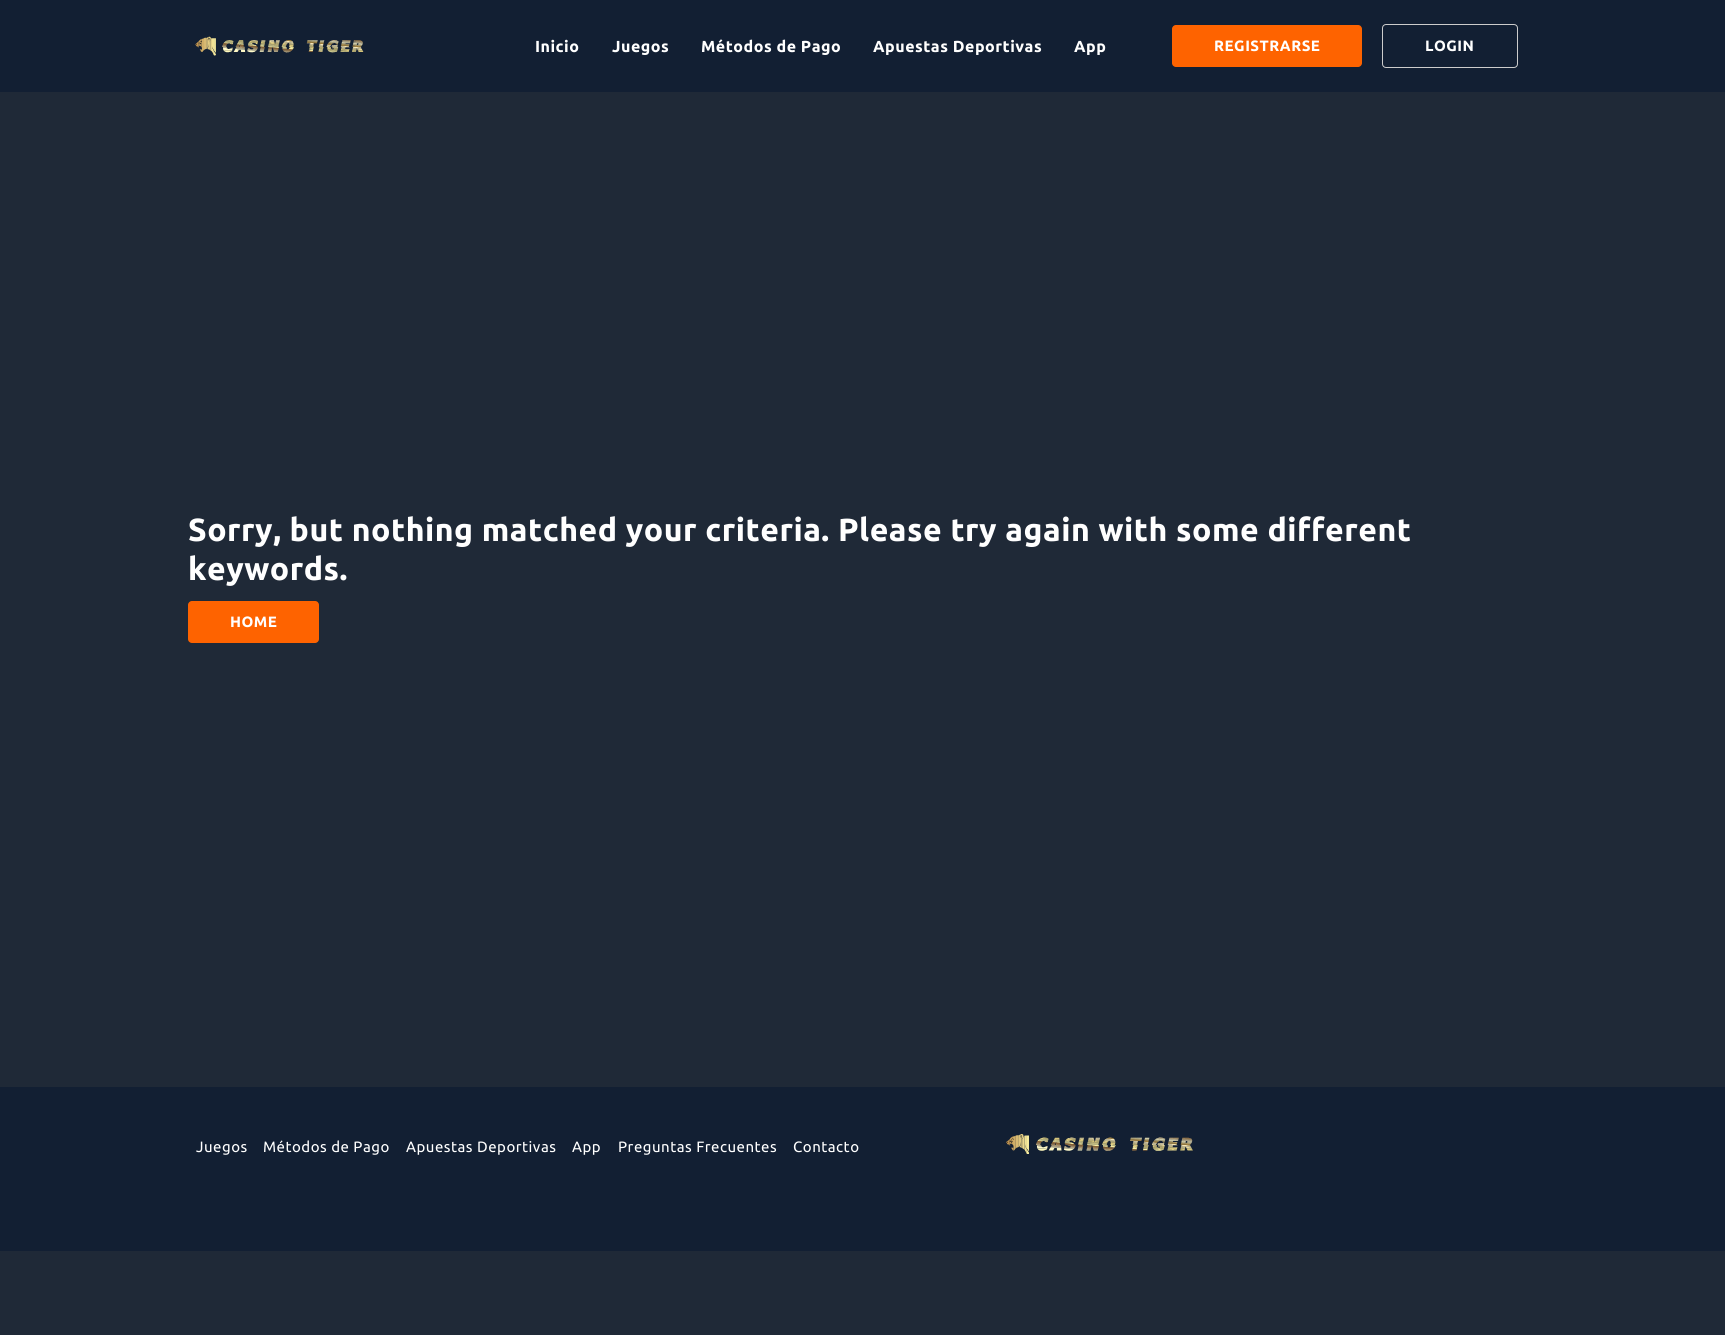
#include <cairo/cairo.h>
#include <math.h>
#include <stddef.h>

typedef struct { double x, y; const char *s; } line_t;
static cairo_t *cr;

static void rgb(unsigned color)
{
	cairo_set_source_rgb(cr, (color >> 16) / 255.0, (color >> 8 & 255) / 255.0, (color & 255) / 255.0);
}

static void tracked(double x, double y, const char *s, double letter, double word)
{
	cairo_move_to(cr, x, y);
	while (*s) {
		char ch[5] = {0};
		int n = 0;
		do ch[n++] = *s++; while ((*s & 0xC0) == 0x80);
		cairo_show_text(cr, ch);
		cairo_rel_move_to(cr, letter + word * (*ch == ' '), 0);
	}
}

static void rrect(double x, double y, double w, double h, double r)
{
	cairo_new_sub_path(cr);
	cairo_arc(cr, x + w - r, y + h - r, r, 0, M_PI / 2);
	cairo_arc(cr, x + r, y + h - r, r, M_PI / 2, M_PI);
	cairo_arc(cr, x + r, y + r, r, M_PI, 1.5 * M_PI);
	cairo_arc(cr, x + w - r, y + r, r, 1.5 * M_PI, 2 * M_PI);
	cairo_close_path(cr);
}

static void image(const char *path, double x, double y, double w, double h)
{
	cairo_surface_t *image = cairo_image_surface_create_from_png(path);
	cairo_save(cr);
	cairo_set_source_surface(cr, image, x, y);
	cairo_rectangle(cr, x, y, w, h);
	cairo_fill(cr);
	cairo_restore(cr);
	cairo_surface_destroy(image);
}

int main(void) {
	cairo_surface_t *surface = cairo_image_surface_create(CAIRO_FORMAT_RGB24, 1725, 1335);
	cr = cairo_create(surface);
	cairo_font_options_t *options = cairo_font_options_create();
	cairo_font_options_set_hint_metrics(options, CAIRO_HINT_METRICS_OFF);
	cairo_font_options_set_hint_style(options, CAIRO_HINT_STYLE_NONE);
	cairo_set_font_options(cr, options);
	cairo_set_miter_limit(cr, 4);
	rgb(0x1f2937);
	cairo_paint(cr);
	rgb(0x121f33);
	cairo_rectangle(cr, 0, 0, 1725, 92);
	cairo_fill(cr);
	image("img/1.png", 195, 36, 169, 20);
	rgb(0xfe6300);
	rrect(1172, 25, 190, 42, 4);
	cairo_fill(cr);
	rrect(1382.5, 24.5, 135, 43, 3.5);
	rgb(0xcccccc);
	cairo_set_line_width(cr, 1);
	cairo_stroke(cr);
	rgb(0xfe6300);
	rrect(188, 601, 131, 42, 4);
	cairo_fill(cr);
	rgb(0x121f33);
	cairo_rectangle(cr, 0, 1087, 1725, 164);
	cairo_fill(cr);
	image("img/2.png", 1006, 1134, 187, 20);
	cairo_select_font_face(cr, "Ubuntu", CAIRO_FONT_SLANT_NORMAL, CAIRO_FONT_WEIGHT_BOLD);
	cairo_set_font_size(cr, 16);
	rgb(0xffffff);
	{
		static const line_t items[] = {
			{535, 52, "Inicio"},
			{612, 52, "Juegos"},
			{701, 52, "Métodos de Pago"},
			{873, 52, "Apuestas Deportivas"},
			{1074, 52, "App"},
		};
		for (size_t i = 0; i < sizeof items / sizeof *items; i++) {
			tracked(items[i].x, items[i].y, items[i].s, 0.5, 0);
		}
	}
	cairo_set_font_size(cr, 15);
	tracked(1214, 51, "REGISTRARSE", 0.5, 0);
	tracked(1425, 51, "LOGIN", 0.5, 0);
	cairo_set_font_size(cr, 32);
	tracked(188, 541, "Sorry, but nothing matched your criteria. Please try again with some different", 0.5, 0);
	tracked(188, 580, "keywords.", 0.5, 0);
	cairo_set_font_size(cr, 15);
	tracked(230, 627, "HOME", 0.5, 0);
	cairo_select_font_face(cr, "Ubuntu", CAIRO_FONT_SLANT_NORMAL, CAIRO_FONT_WEIGHT_NORMAL);
	{
		static const line_t items[] = {
			{196, 1152, "Juegos"},
			{263, 1152, "Métodos de Pago"},
			{406, 1152, "Apuestas Deportivas"},
			{572, 1152, "App"},
			{618, 1152, "Preguntas Frecuentes"},
			{793, 1152, "Contacto"},
		};
		for (size_t i = 0; i < sizeof items / sizeof *items; i++) {
			tracked(items[i].x, items[i].y, items[i].s, 0.5, 0);
		}
	}
	cairo_surface_write_to_png(surface, "page.png");
	cairo_font_options_destroy(options);
	cairo_destroy(cr);
	cairo_surface_destroy(surface);
	return 0;
}
